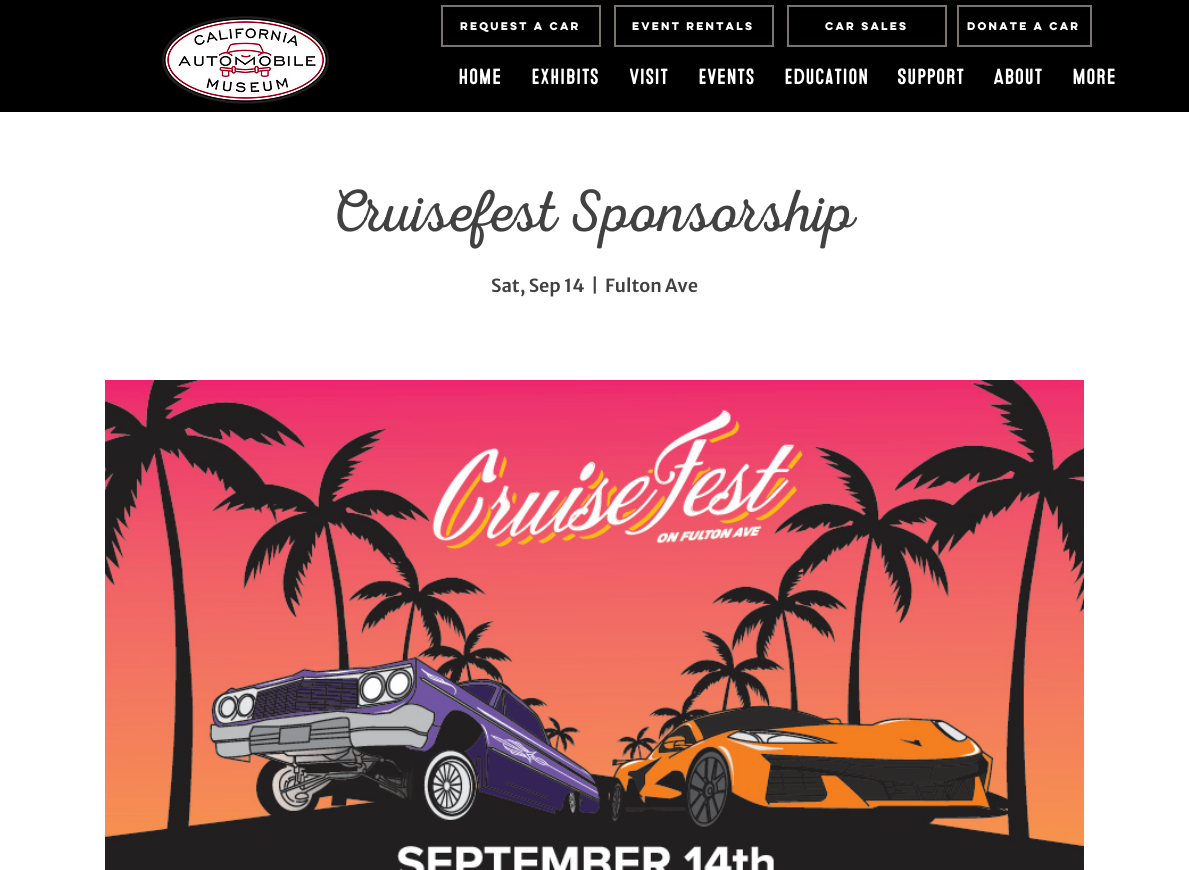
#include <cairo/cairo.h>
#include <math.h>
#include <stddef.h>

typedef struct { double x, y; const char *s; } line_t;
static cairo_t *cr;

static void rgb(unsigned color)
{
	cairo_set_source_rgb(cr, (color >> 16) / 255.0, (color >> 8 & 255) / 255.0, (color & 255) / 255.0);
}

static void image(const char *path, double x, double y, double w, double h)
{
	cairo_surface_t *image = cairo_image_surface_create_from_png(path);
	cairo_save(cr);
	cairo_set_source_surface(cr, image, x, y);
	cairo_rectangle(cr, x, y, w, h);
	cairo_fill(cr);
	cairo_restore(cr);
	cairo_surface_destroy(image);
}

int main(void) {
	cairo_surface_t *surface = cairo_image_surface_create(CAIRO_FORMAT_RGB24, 1189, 870);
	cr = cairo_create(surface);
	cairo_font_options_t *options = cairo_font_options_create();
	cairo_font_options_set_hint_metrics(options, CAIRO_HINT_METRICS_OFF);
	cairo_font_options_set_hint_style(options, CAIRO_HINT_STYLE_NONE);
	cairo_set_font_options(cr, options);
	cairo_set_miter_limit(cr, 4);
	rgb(0xffffff);
	cairo_paint(cr);
	rgb(0x000000);
	cairo_rectangle(cr, 0, 0, 1189, 112);
	cairo_fill(cr);
	cairo_rectangle(cr, 442, 6, 158, 40);
	rgb(0x7b736f);
	cairo_stroke(cr);
	cairo_rectangle(cr, 615, 6, 158, 40);
	cairo_stroke(cr);
	cairo_rectangle(cr, 788, 6, 158, 40);
	cairo_stroke(cr);
	cairo_rectangle(cr, 958, 6, 133, 40);
	cairo_stroke(cr);
	image("img/1.png", 162, 16, 168, 88);
	image("img/2.png", 105, 380, 979, 490);
	cairo_select_font_face(cr, "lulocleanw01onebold", CAIRO_FONT_SLANT_NORMAL, CAIRO_FONT_WEIGHT_BOLD);
	cairo_set_font_size(cr, 10);
	rgb(0xffffff);
	{
		static const line_t items[] = {
			{460, 30, "Request a Car"},
			{632, 30, "Event Rentals"},
			{825, 30, "Car Sales"},
			{967, 30, "Donate A Car"},
		};
		for (size_t i = 0; i < sizeof items / sizeof *items; i++) {
			cairo_move_to(cr, items[i].x, items[i].y);
			cairo_show_text(cr, items[i].s);
		}
	}
	cairo_select_font_face(cr, "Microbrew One", CAIRO_FONT_SLANT_NORMAL, CAIRO_FONT_WEIGHT_NORMAL);
	cairo_set_font_size(cr, 22);
	{
		static const line_t items[] = {
			{458, 84, "Home"},
			{531, 84, "Exhibits"},
			{629, 84, "Visit"},
			{698, 84, "Events"},
			{784, 84, "Education"},
			{897, 84, "Support"},
			{993, 84, "About"},
			{1072, 84, "More"},
		};
		for (size_t i = 0; i < sizeof items / sizeof *items; i++) {
			cairo_move_to(cr, items[i].x, items[i].y);
			cairo_show_text(cr, items[i].s);
		}
	}
	cairo_select_font_face(cr, "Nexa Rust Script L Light", CAIRO_FONT_SLANT_NORMAL, CAIRO_FONT_WEIGHT_NORMAL);
	cairo_set_font_size(cr, 60);
	rgb(0x414141);
	cairo_move_to(cr, 333, 231);
	cairo_show_text(cr, "Cruisefest Sponsorship");
	cairo_select_font_face(cr, "Merriweather Sans SemiBold", CAIRO_FONT_SLANT_NORMAL, CAIRO_FONT_WEIGHT_NORMAL);
	cairo_set_font_size(cr, 18);
	{
		static const line_t items[] = {
			{491, 292, "Sat, Sep 14"},
			{591, 292, "|"},
			{605, 292, "Fulton Ave"},
		};
		for (size_t i = 0; i < sizeof items / sizeof *items; i++) {
			cairo_move_to(cr, items[i].x, items[i].y);
			cairo_show_text(cr, items[i].s);
		}
	}
	cairo_surface_write_to_png(surface, "page.png");
	cairo_font_options_destroy(options);
	cairo_destroy(cr);
	cairo_surface_destroy(surface);
	return 0;
}
